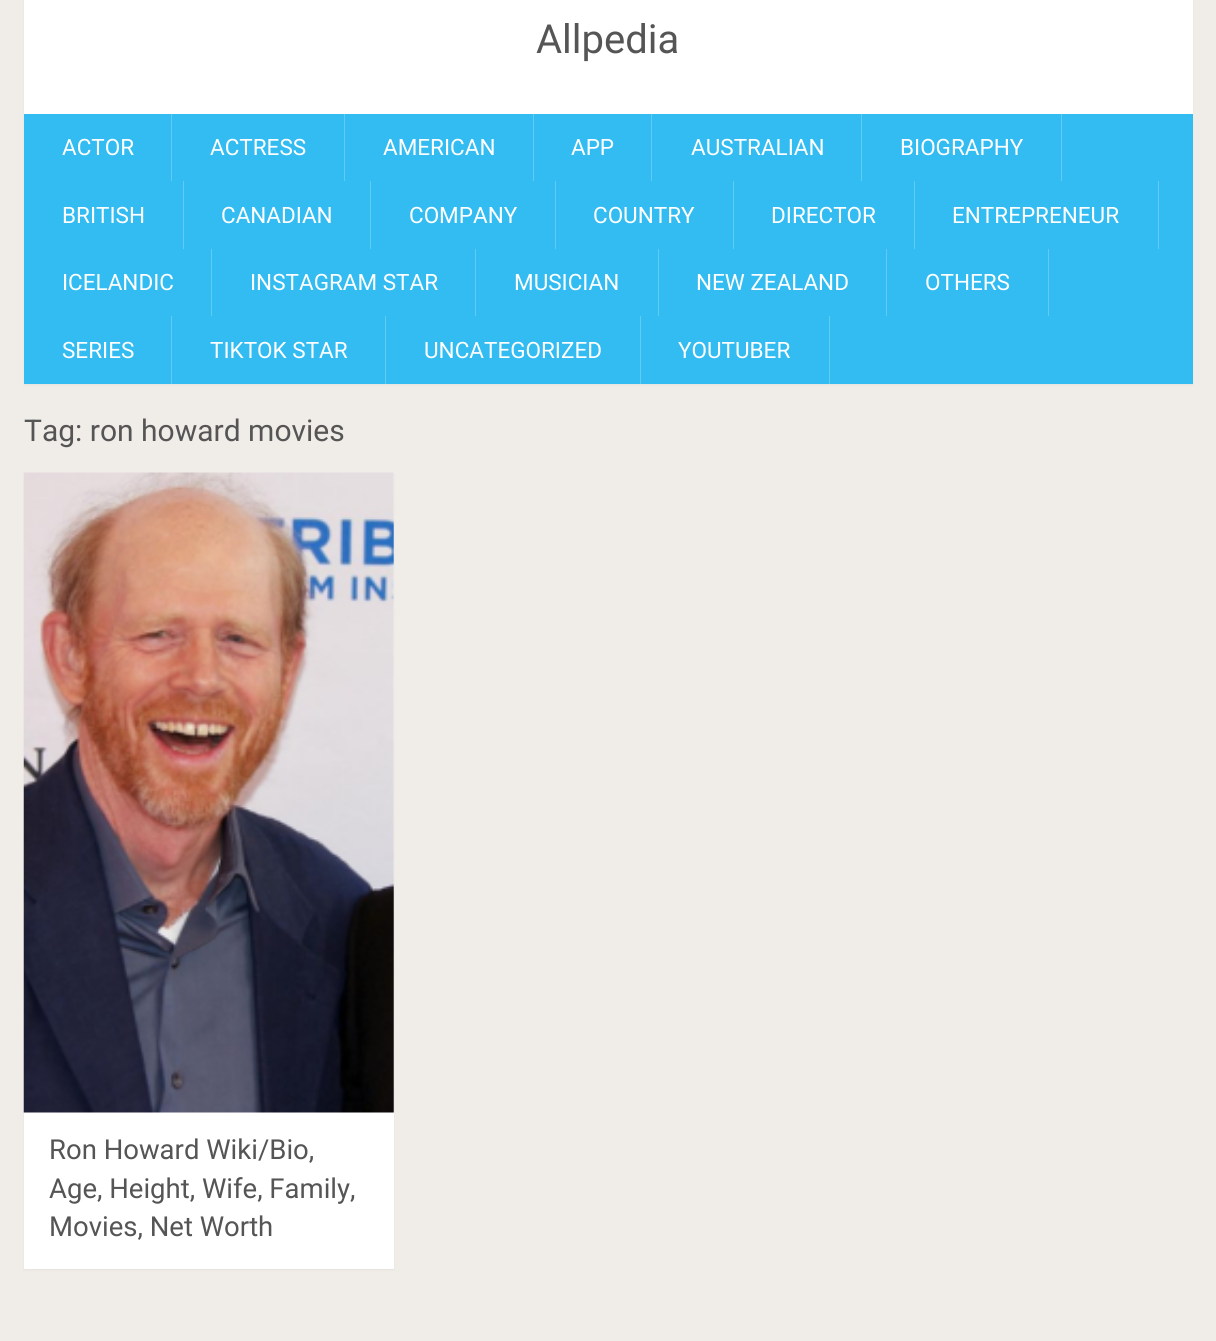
#include <cairo/cairo.h>
#include <math.h>
#include <stddef.h>

typedef struct { double x, y; const char *s; } line_t;
typedef struct { double x, y, w, h; unsigned color; } box_t;
static cairo_t *cr;

static void rgb(unsigned color)
{
	cairo_set_source_rgb(cr, (color >> 16) / 255.0, (color >> 8 & 255) / 255.0, (color & 255) / 255.0);
}

static void rrect(double x, double y, double w, double h, double r)
{
	cairo_new_sub_path(cr);
	cairo_arc(cr, x + w - r, y + h - r, r, 0, M_PI / 2);
	cairo_arc(cr, x + r, y + h - r, r, M_PI / 2, M_PI);
	cairo_arc(cr, x + r, y + r, r, M_PI, 1.5 * M_PI);
	cairo_arc(cr, x + w - r, y + r, r, 1.5 * M_PI, 2 * M_PI);
	cairo_close_path(cr);
}

static void soft_shadow(double x, double y, double w, double h, double r, double blur, double alpha)
{
	cairo_push_group_with_content(cr, CAIRO_CONTENT_ALPHA);
	cairo_set_operator(cr, CAIRO_OPERATOR_SOURCE);
	for (int i = 15; i >= -15 && fmin(w, h) + blur * i / 3 > 0; i -= 2) {
		double e = blur * i / 6;
		cairo_set_source_rgba(cr, 0, 0, 0, alpha * erfc((i - 1) / 8.5) / 2);
		rrect(x - e, y - e, w + 2 * e, h + 2 * e, fmax(0, fmin(r + e + blur * .6, fmin(w, h) / 2 + e)));
		cairo_fill(cr);
	}
	cairo_pattern_t *soft = cairo_pop_group(cr);
	cairo_mask(cr, soft);
	cairo_pattern_destroy(soft);
}

static void image(const char *path, double x, double y, double w, double h)
{
	cairo_surface_t *image = cairo_image_surface_create_from_png(path);
	cairo_save(cr);
	cairo_set_source_surface(cr, image, x, y);
	cairo_rectangle(cr, x, y, w, h);
	cairo_fill(cr);
	cairo_restore(cr);
	cairo_surface_destroy(image);
}

int main(void) {
	cairo_surface_t *surface = cairo_image_surface_create(CAIRO_FORMAT_RGB24, 1216, 1341);
	cr = cairo_create(surface);
	cairo_font_options_t *options = cairo_font_options_create();
	cairo_font_options_set_hint_metrics(options, CAIRO_HINT_METRICS_OFF);
	cairo_font_options_set_hint_style(options, CAIRO_HINT_STYLE_NONE);
	cairo_set_font_options(cr, options);
	cairo_set_miter_limit(cr, 4);
	rgb(0xf0ede9);
	cairo_paint(cr);
	rgb(0x000000);
	soft_shadow(24, 1, 1169, 384, 0, 1, 0.05);
	{
		static const box_t items[] = {
			{24, 0, 1169, 114, 0xffffff},
			{24, 114, 1169, 270, 0x33bcf2},
			{171, 114, 1, 67, 0x60cbf5},
			{344, 114, 1, 67, 0x60cbf5},
			{533, 114, 1, 67, 0x60cbf5},
			{651, 114, 1, 67, 0x60cbf5},
			{861, 114, 1, 67, 0x60cbf5},
			{1061, 114, 1, 67, 0x60cbf5},
			{183, 181, 1, 68, 0x60cbf5},
			{370, 181, 1, 68, 0x60cbf5},
			{555, 181, 1, 68, 0x60cbf5},
			{733, 181, 1, 68, 0x60cbf5},
			{914, 181, 1, 68, 0x60cbf5},
			{1158, 181, 1, 68, 0x60cbf5},
			{211, 249, 1, 67, 0x60cbf5},
			{475, 249, 1, 67, 0x60cbf5},
			{658, 249, 1, 67, 0x60cbf5},
			{886, 249, 1, 67, 0x60cbf5},
			{1048, 249, 1, 67, 0x60cbf5},
			{171, 316, 1, 68, 0x60cbf5},
			{385, 316, 1, 68, 0x60cbf5},
			{640, 316, 1, 68, 0x60cbf5},
			{829, 316, 1, 68, 0x60cbf5},
		};
		for (size_t i = 0; i < sizeof items / sizeof *items; i++) {
			rgb(items[i].color);
			cairo_rectangle(cr, items[i].x, items[i].y, items[i].w, items[i].h);
			cairo_fill(cr);
		}
	}
	rgb(0x000000);
	soft_shadow(24, 474, 370, 796, 0, 1, 0.05);
	rgb(0xffffff);
	cairo_rectangle(cr, 24, 473, 370, 796);
	cairo_fill(cr);
	image("img/1.png", 23, 472, 371, 641);
	cairo_select_font_face(cr, "Roboto", CAIRO_FONT_SLANT_NORMAL, CAIRO_FONT_WEIGHT_NORMAL);
	cairo_set_font_size(cr, 40);
	rgb(0x555555);
	cairo_move_to(cr, 536, 53);
	cairo_show_text(cr, "Allpedia");
	cairo_set_font_size(cr, 22.5);
	rgb(0xffffff);
	{
		static const line_t items[] = {
			{62, 155, "ACTOR"},
			{210, 155, "ACTRESS"},
			{383, 155, "AMERICAN"},
			{571, 155, "APP"},
			{691, 155, "AUSTRALIAN"},
			{900, 155, "BIOGRAPHY"},
			{62, 223, "BRITISH"},
			{221, 223, "CANADIAN"},
			{409, 223, "COMPANY"},
			{593, 223, "COUNTRY"},
			{771, 223, "DIRECTOR"},
			{952, 223, "ENTREPRENEUR"},
			{62, 290, "ICELANDIC"},
			{250, 290, "INSTAGRAM STAR"},
			{514, 290, "MUSICIAN"},
			{696, 290, "NEW ZEALAND"},
			{925, 290, "OTHERS"},
			{62, 358, "SERIES"},
			{210, 358, "TIKTOK STAR"},
			{424, 358, "UNCATEGORIZED"},
			{678, 358, "YOUTUBER"},
		};
		for (size_t i = 0; i < sizeof items / sizeof *items; i++) {
			cairo_move_to(cr, items[i].x, items[i].y);
			cairo_show_text(cr, items[i].s);
		}
	}
	cairo_set_font_size(cr, 30);
	rgb(0x555555);
	cairo_move_to(cr, 24, 441);
	cairo_show_text(cr, "Tag: ron howard movies");
	cairo_set_font_size(cr, 27.5);
	{
		static const line_t items[] = {
			{49, 1159, "Ron Howard Wiki/Bio,"},
			{49, 1198, "Age, Height, Wife, Family,"},
			{49, 1236, "Movies, Net Worth"},
		};
		for (size_t i = 0; i < sizeof items / sizeof *items; i++) {
			cairo_move_to(cr, items[i].x, items[i].y);
			cairo_show_text(cr, items[i].s);
		}
	}
	cairo_surface_write_to_png(surface, "page.png");
	cairo_font_options_destroy(options);
	cairo_destroy(cr);
	cairo_surface_destroy(surface);
	return 0;
}
